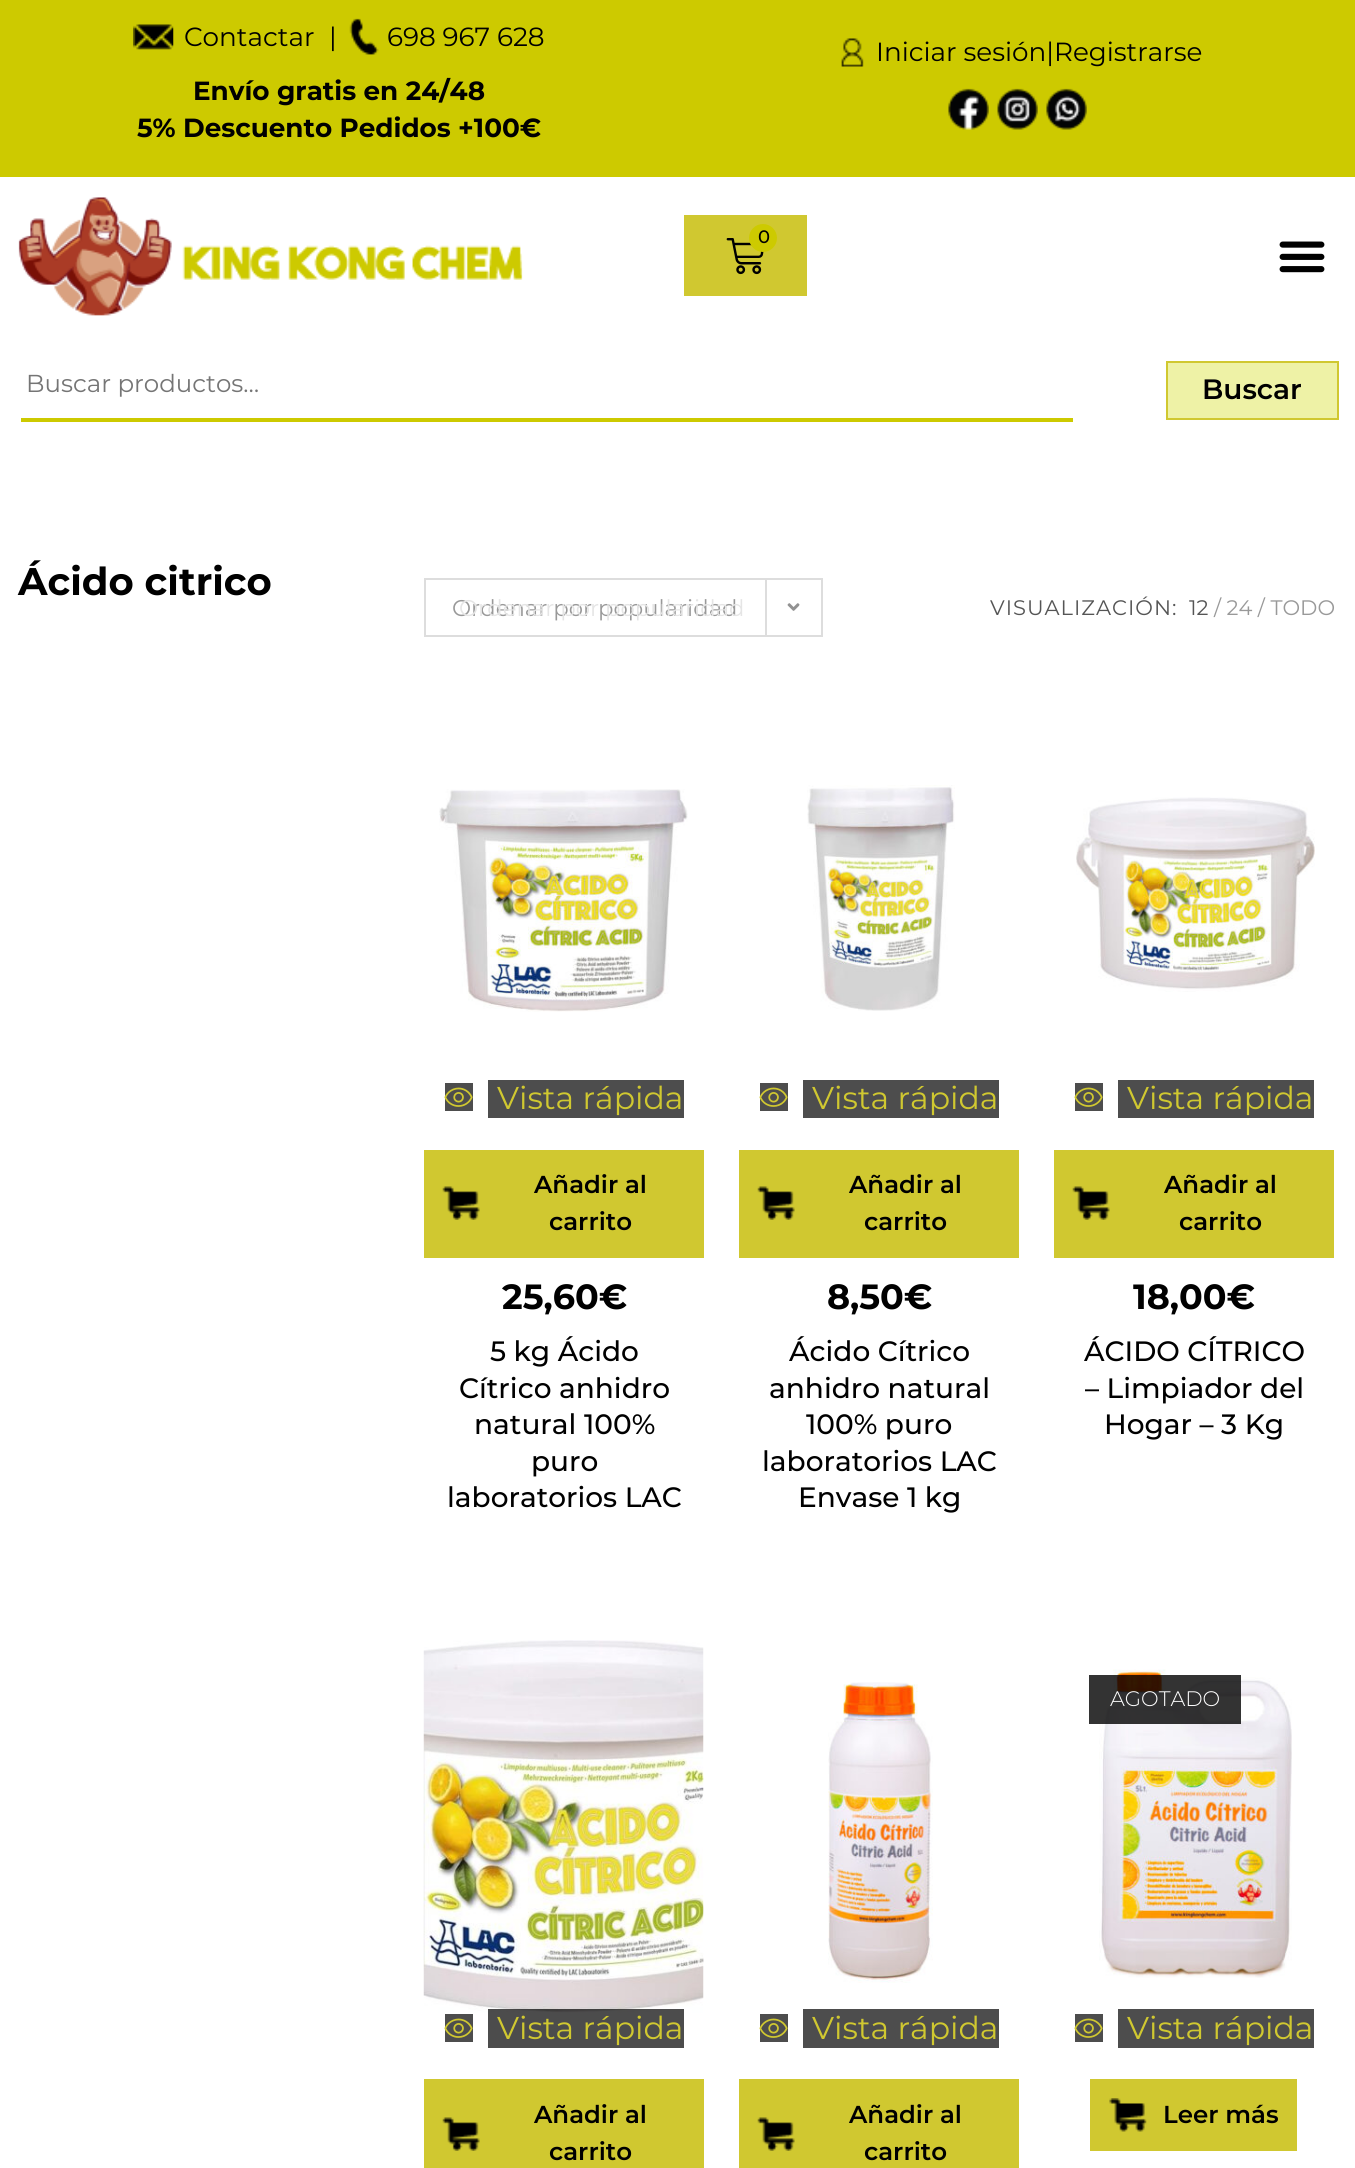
#include <cairo/cairo.h>
#include <math.h>
#include <stddef.h>

typedef struct { double x, y; const char *s; } line_t;
static cairo_t *cr;

static void rgb(unsigned color)
{
	cairo_set_source_rgb(cr, (color >> 16) / 255.0, (color >> 8 & 255) / 255.0, (color & 255) / 255.0);
}

static void tracked(double x, double y, const char *s, double letter, double word)
{
	cairo_move_to(cr, x, y);
	while (*s) {
		char ch[5] = {0};
		int n = 0;
		do ch[n++] = *s++; while ((*s & 0xC0) == 0x80);
		cairo_show_text(cr, ch);
		cairo_rel_move_to(cr, letter + word * (*ch == ' '), 0);
	}
}

static void image(const char *path, double x, double y, double w, double h)
{
	cairo_surface_t *image = cairo_image_surface_create_from_png(path);
	cairo_save(cr);
	cairo_set_source_surface(cr, image, x, y);
	cairo_rectangle(cr, x, y, w, h);
	cairo_fill(cr);
	cairo_restore(cr);
	cairo_surface_destroy(image);
}

int main(void) {
	cairo_surface_t *surface = cairo_image_surface_create(CAIRO_FORMAT_RGB24, 1355, 2168);
	cr = cairo_create(surface);
	cairo_font_options_t *options = cairo_font_options_create();
	cairo_font_options_set_hint_metrics(options, CAIRO_HINT_METRICS_OFF);
	cairo_font_options_set_hint_style(options, CAIRO_HINT_STYLE_NONE);
	cairo_set_font_options(cr, options);
	cairo_set_miter_limit(cr, 4);
	rgb(0xffffff);
	cairo_paint(cr);
	rgb(0xcdca00);
	cairo_rectangle(cr, 0, 0, 1355, 177);
	cairo_fill(cr);
	image("img/1.png", 133, 24, 41, 26);
	image("img/2.png", 349, 18, 30, 37);
	image("img/3.png", 841, 38, 23, 29);
	image("img/4.png", 948, 88, 41, 42);
	image("img/5.png", 997, 88, 41, 42);
	image("img/6.png", 1046, 88, 41, 42);
	image("img/7.png", 18, 197, 505, 119);
	rgb(0xd0c830);
	cairo_rectangle(cr, 684, 215, 123, 81);
	cairo_fill(cr);
	image("img/8.png", 726, 238, 38, 37);
	rgb(0xcdca00);
	cairo_arc(cr, 763, 238, 14, 0, 2 * M_PI);
	cairo_fill(cr);
	image("img/9.png", 1279, 241, 46, 32);
	cairo_rectangle(cr, 21, 418, 1052, 4);
	cairo_fill(cr);
	rgb(0xeef2a6);
	cairo_rectangle(cr, 1167, 362, 171, 57);
	cairo_fill_preserve(cr);
	rgb(0xd0c830);
	cairo_stroke(cr);
	cairo_rectangle(cr, 425, 579, 397, 57);
	rgb(0xdddddd);
	cairo_stroke(cr);
	cairo_rectangle(cr, 765, 579, 2, 56);
	cairo_fill(cr);
	image("img/10.png", 787, 603, 13, 8);
	cairo_new_path(cr);
	cairo_move_to(cr, 800.5, 604);
	cairo_line_to(cr, 807.5, 611);
	cairo_line_to(cr, 814.5, 604);
	rgb(0xffffff);
	cairo_set_line_width(cr, 3.5);
	cairo_stroke(cr);
	image("img/11.png", 439, 789, 249, 223);
	rgb(0x4d4d4d);
	cairo_rectangle(cr, 445, 1083, 28, 28);
	cairo_fill(cr);
	cairo_rectangle(cr, 488, 1080, 196, 38);
	cairo_fill(cr);
	image("img/12.png", 444, 1087, 29, 20);
	rgb(0xd0c830);
	cairo_rectangle(cr, 424, 1150, 280, 108);
	cairo_fill(cr);
	image("img/13.png", 442, 1186, 38, 34);
	image("img/14.png", 807, 785, 148, 226);
	rgb(0x4d4d4d);
	cairo_rectangle(cr, 760, 1083, 28, 28);
	cairo_fill(cr);
	cairo_rectangle(cr, 803, 1080, 196, 38);
	cairo_fill(cr);
	image("img/12.png", 759, 1087, 29, 20);
	rgb(0xd0c830);
	cairo_rectangle(cr, 739, 1150, 280, 108);
	cairo_fill(cr);
	image("img/13.png", 757, 1186, 38, 34);
	image("img/15.png", 1076, 797, 239, 195);
	rgb(0x4d4d4d);
	cairo_rectangle(cr, 1075, 1083, 28, 28);
	cairo_fill(cr);
	cairo_rectangle(cr, 1118, 1080, 196, 38);
	cairo_fill(cr);
	image("img/12.png", 1074, 1087, 29, 20);
	rgb(0xd0c830);
	cairo_rectangle(cr, 1054, 1150, 280, 108);
	cairo_fill(cr);
	image("img/16.png", 1072, 1186, 38, 34);
	image("img/17.png", 423, 1640, 281, 373);
	rgb(0x4d4d4d);
	cairo_rectangle(cr, 445, 2014, 28, 28);
	cairo_fill(cr);
	cairo_set_source_rgba(cr, 0, 0, 0, 0.7);
	cairo_rectangle(cr, 488, 2009, 196, 39);
	cairo_fill(cr);
	image("img/12.png", 444, 2018, 29, 20);
	rgb(0xd0c830);
	cairo_rectangle(cr, 424, 2079, 280, 89);
	cairo_fill(cr);
	image("img/13.png", 442, 2117, 38, 34);
	image("img/18.png", 828, 1682, 105, 301);
	rgb(0x4d4d4d);
	cairo_rectangle(cr, 760, 2014, 28, 28);
	cairo_fill(cr);
	cairo_rectangle(cr, 803, 2009, 196, 39);
	cairo_fill(cr);
	image("img/12.png", 759, 2018, 29, 20);
	rgb(0xd0c830);
	cairo_rectangle(cr, 739, 2079, 280, 89);
	cairo_fill(cr);
	image("img/13.png", 757, 2117, 38, 34);
	image("img/19.png", 1099, 1669, 193, 309);
	cairo_set_source_rgba(cr, 0, 0, 0, 0.8);
	cairo_rectangle(cr, 1089, 1675, 152, 49);
	cairo_fill(cr);
	rgb(0x4d4d4d);
	cairo_rectangle(cr, 1075, 2014, 28, 28);
	cairo_fill(cr);
	cairo_rectangle(cr, 1118, 2009, 196, 39);
	cairo_fill(cr);
	image("img/12.png", 1074, 2018, 29, 20);
	rgb(0xd0c830);
	cairo_rectangle(cr, 1090, 2079, 207, 72);
	cairo_fill(cr);
	image("img/20.png", 1109, 2098, 38, 34);
	cairo_select_font_face(cr, "Montserrat", CAIRO_FONT_SLANT_NORMAL, CAIRO_FONT_WEIGHT_NORMAL);
	cairo_set_font_size(cr, 26.25);
	rgb(0x000000);
	{
		static const line_t items[] = {
			{184, 46, "Contactar"},
			{329, 46, "|"},
			{387, 46, "698 967 628"},
		};
		for (size_t i = 0; i < sizeof items / sizeof *items; i++) {
			cairo_move_to(cr, items[i].x, items[i].y);
			cairo_show_text(cr, items[i].s);
		}
	}
	cairo_select_font_face(cr, "Montserrat", CAIRO_FONT_SLANT_NORMAL, CAIRO_FONT_WEIGHT_BOLD);
	cairo_move_to(cr, 193, 100);
	cairo_show_text(cr, "Envío gratis en 24/48");
	cairo_move_to(cr, 137, 137);
	cairo_show_text(cr, "5% Descuento Pedidos +100€");
	cairo_select_font_face(cr, "Montserrat", CAIRO_FONT_SLANT_NORMAL, CAIRO_FONT_WEIGHT_NORMAL);
	cairo_move_to(cr, 876, 61);
	cairo_show_text(cr, "Iniciar sesión|Registrarse");
	cairo_select_font_face(cr, "Montserrat Medium", CAIRO_FONT_SLANT_NORMAL, CAIRO_FONT_WEIGHT_NORMAL);
	cairo_set_font_size(cr, 18);
	cairo_move_to(cr, 758, 243);
	cairo_show_text(cr, "0");
	cairo_select_font_face(cr, "Montserrat", CAIRO_FONT_SLANT_NORMAL, CAIRO_FONT_WEIGHT_NORMAL);
	cairo_set_font_size(cr, 24.5);
	rgb(0x757575);
	cairo_move_to(cr, 26, 392);
	cairo_show_text(cr, "Buscar productos…");
	cairo_select_font_face(cr, "Montserrat SemiBold", CAIRO_FONT_SLANT_NORMAL, CAIRO_FONT_WEIGHT_NORMAL);
	cairo_set_font_size(cr, 28);
	rgb(0x000000);
	cairo_move_to(cr, 1202, 399);
	cairo_show_text(cr, "Buscar");
	cairo_select_font_face(cr, "Montserrat", CAIRO_FONT_SLANT_NORMAL, CAIRO_FONT_WEIGHT_BOLD);
	cairo_set_font_size(cr, 38.5);
	cairo_move_to(cr, 18, 595);
	cairo_show_text(cr, "Ácido citrico");
	cairo_select_font_face(cr, "Montserrat", CAIRO_FONT_SLANT_NORMAL, CAIRO_FONT_WEIGHT_NORMAL);
	cairo_set_font_size(cr, 22.75);
	rgb(0x999999);
	cairo_move_to(cr, 452, 616);
	cairo_show_text(cr, "Ordenar por popularidad");
	rgb(0xe5e5e5);
	cairo_move_to(cr, 459, 616);
	cairo_show_text(cr, "Ordenar por popularidad");
	cairo_set_font_size(cr, 21);
	rgb(0x555555);
	tracked(990, 615, "VISUALIZACIÓN:", 1, 0);
	cairo_move_to(cr, 1189, 615);
	cairo_show_text(cr, "12");
	rgb(0x999999);
	cairo_move_to(cr, 1214, 615);
	cairo_show_text(cr, "/ 24 / TODO");
	cairo_set_font_size(cr, 31.5);
	rgb(0xd0c830);
	cairo_move_to(cr, 497, 1109);
	cairo_show_text(cr, "Vista rápida");
	cairo_select_font_face(cr, "Montserrat SemiBold", CAIRO_FONT_SLANT_NORMAL, CAIRO_FONT_WEIGHT_NORMAL);
	cairo_set_font_size(cr, 24.5);
	rgb(0x000000);
	cairo_move_to(cr, 534, 1193);
	cairo_show_text(cr, "Añadir al");
	cairo_move_to(cr, 549, 1230);
	cairo_show_text(cr, "carrito");
	cairo_select_font_face(cr, "Montserrat", CAIRO_FONT_SLANT_NORMAL, CAIRO_FONT_WEIGHT_BOLD);
	cairo_set_font_size(cr, 35);
	cairo_move_to(cr, 502, 1309);
	cairo_show_text(cr, "25,60€");
	cairo_select_font_face(cr, "Montserrat Medium", CAIRO_FONT_SLANT_NORMAL, CAIRO_FONT_WEIGHT_NORMAL);
	cairo_set_font_size(cr, 28);
	{
		static const line_t items[] = {
			{490, 1361, "5 kg Ácido"},
			{459, 1398, "Cítrico anhidro"},
			{474, 1434, "natural 100%"},
			{531, 1471, "puro"},
			{447, 1507, "laboratorios LAC"},
		};
		for (size_t i = 0; i < sizeof items / sizeof *items; i++) {
			cairo_move_to(cr, items[i].x, items[i].y);
			cairo_show_text(cr, items[i].s);
		}
	}
	cairo_select_font_face(cr, "Montserrat", CAIRO_FONT_SLANT_NORMAL, CAIRO_FONT_WEIGHT_NORMAL);
	cairo_set_font_size(cr, 31.5);
	rgb(0xd0c830);
	cairo_move_to(cr, 812, 1109);
	cairo_show_text(cr, "Vista rápida");
	cairo_select_font_face(cr, "Montserrat SemiBold", CAIRO_FONT_SLANT_NORMAL, CAIRO_FONT_WEIGHT_NORMAL);
	cairo_set_font_size(cr, 24.5);
	rgb(0x000000);
	cairo_move_to(cr, 849, 1193);
	cairo_show_text(cr, "Añadir al");
	cairo_move_to(cr, 864, 1230);
	cairo_show_text(cr, "carrito");
	cairo_select_font_face(cr, "Montserrat", CAIRO_FONT_SLANT_NORMAL, CAIRO_FONT_WEIGHT_BOLD);
	cairo_set_font_size(cr, 35);
	cairo_move_to(cr, 827, 1309);
	cairo_show_text(cr, "8,50€");
	cairo_select_font_face(cr, "Montserrat Medium", CAIRO_FONT_SLANT_NORMAL, CAIRO_FONT_WEIGHT_NORMAL);
	cairo_set_font_size(cr, 28);
	{
		static const line_t items[] = {
			{789, 1361, "Ácido Cítrico"},
			{769, 1398, "anhidro natural"},
			{806, 1434, "100% puro"},
			{762, 1471, "laboratorios LAC"},
			{798, 1507, "Envase 1 kg"},
		};
		for (size_t i = 0; i < sizeof items / sizeof *items; i++) {
			cairo_move_to(cr, items[i].x, items[i].y);
			cairo_show_text(cr, items[i].s);
		}
	}
	cairo_select_font_face(cr, "Montserrat", CAIRO_FONT_SLANT_NORMAL, CAIRO_FONT_WEIGHT_NORMAL);
	cairo_set_font_size(cr, 31.5);
	rgb(0xd0c830);
	cairo_move_to(cr, 1127, 1109);
	cairo_show_text(cr, "Vista rápida");
	cairo_select_font_face(cr, "Montserrat SemiBold", CAIRO_FONT_SLANT_NORMAL, CAIRO_FONT_WEIGHT_NORMAL);
	cairo_set_font_size(cr, 24.5);
	rgb(0x000000);
	cairo_move_to(cr, 1164, 1193);
	cairo_show_text(cr, "Añadir al");
	cairo_move_to(cr, 1179, 1230);
	cairo_show_text(cr, "carrito");
	cairo_select_font_face(cr, "Montserrat", CAIRO_FONT_SLANT_NORMAL, CAIRO_FONT_WEIGHT_BOLD);
	cairo_set_font_size(cr, 35);
	cairo_move_to(cr, 1133, 1309);
	cairo_show_text(cr, "18,00€");
	cairo_select_font_face(cr, "Montserrat Medium", CAIRO_FONT_SLANT_NORMAL, CAIRO_FONT_WEIGHT_NORMAL);
	cairo_set_font_size(cr, 28);
	{
		static const line_t items[] = {
			{1084, 1361, "ÁCIDO CÍTRICO"},
			{1085, 1398, "– Limpiador del"},
			{1104, 1434, "Hogar – 3 Kg"},
		};
		for (size_t i = 0; i < sizeof items / sizeof *items; i++) {
			cairo_move_to(cr, items[i].x, items[i].y);
			cairo_show_text(cr, items[i].s);
		}
	}
	cairo_select_font_face(cr, "Montserrat", CAIRO_FONT_SLANT_NORMAL, CAIRO_FONT_WEIGHT_NORMAL);
	cairo_set_font_size(cr, 31.5);
	rgb(0xd0c830);
	cairo_move_to(cr, 497, 2039);
	cairo_show_text(cr, "Vista rápida");
	cairo_select_font_face(cr, "Montserrat SemiBold", CAIRO_FONT_SLANT_NORMAL, CAIRO_FONT_WEIGHT_NORMAL);
	cairo_set_font_size(cr, 24.5);
	rgb(0x000000);
	cairo_move_to(cr, 534, 2123);
	cairo_show_text(cr, "Añadir al");
	cairo_move_to(cr, 549, 2160);
	cairo_show_text(cr, "carrito");
	cairo_select_font_face(cr, "Montserrat", CAIRO_FONT_SLANT_NORMAL, CAIRO_FONT_WEIGHT_NORMAL);
	cairo_set_font_size(cr, 31.5);
	rgb(0xd0c830);
	cairo_move_to(cr, 812, 2039);
	cairo_show_text(cr, "Vista rápida");
	cairo_select_font_face(cr, "Montserrat SemiBold", CAIRO_FONT_SLANT_NORMAL, CAIRO_FONT_WEIGHT_NORMAL);
	cairo_set_font_size(cr, 24.5);
	rgb(0x000000);
	cairo_move_to(cr, 849, 2123);
	cairo_show_text(cr, "Añadir al");
	cairo_move_to(cr, 864, 2160);
	cairo_show_text(cr, "carrito");
	cairo_select_font_face(cr, "Montserrat Light", CAIRO_FONT_SLANT_NORMAL, CAIRO_FONT_WEIGHT_NORMAL);
	cairo_set_font_size(cr, 21);
	rgb(0xffffff);
	cairo_move_to(cr, 1110, 1706);
	cairo_show_text(cr, "AGOTADO");
	cairo_select_font_face(cr, "Montserrat", CAIRO_FONT_SLANT_NORMAL, CAIRO_FONT_WEIGHT_NORMAL);
	cairo_set_font_size(cr, 31.5);
	rgb(0xd0c830);
	cairo_move_to(cr, 1127, 2039);
	cairo_show_text(cr, "Vista rápida");
	cairo_select_font_face(cr, "Montserrat SemiBold", CAIRO_FONT_SLANT_NORMAL, CAIRO_FONT_WEIGHT_NORMAL);
	cairo_set_font_size(cr, 24.5);
	rgb(0x000000);
	cairo_move_to(cr, 1163, 2123);
	cairo_show_text(cr, "Leer más");
	cairo_surface_write_to_png(surface, "page.png");
	cairo_font_options_destroy(options);
	cairo_destroy(cr);
	cairo_surface_destroy(surface);
	return 0;
}
